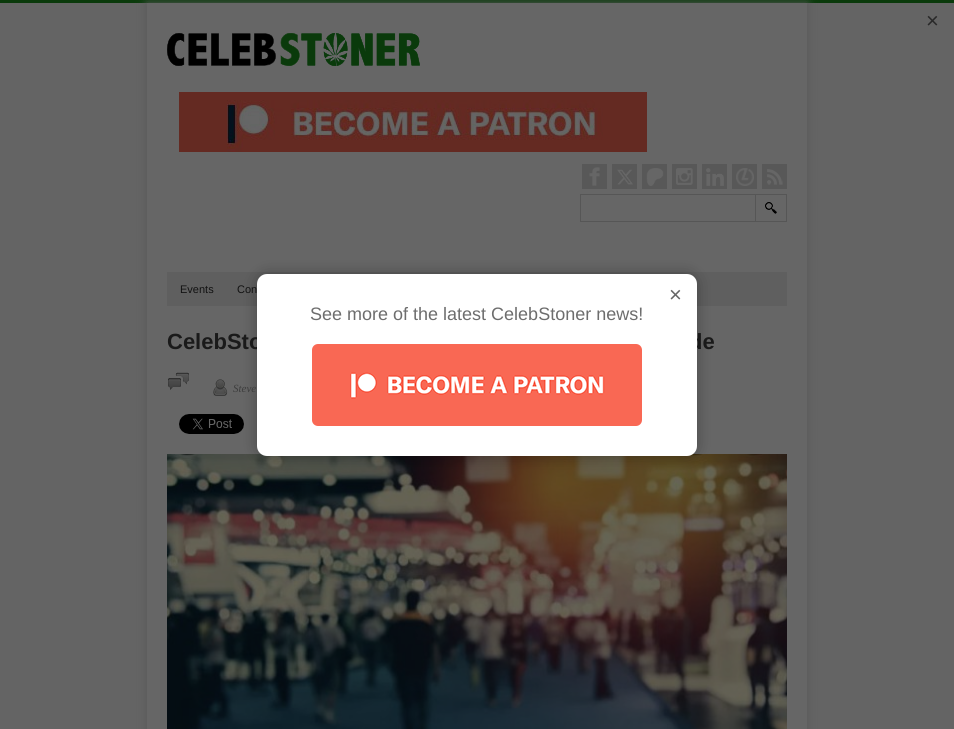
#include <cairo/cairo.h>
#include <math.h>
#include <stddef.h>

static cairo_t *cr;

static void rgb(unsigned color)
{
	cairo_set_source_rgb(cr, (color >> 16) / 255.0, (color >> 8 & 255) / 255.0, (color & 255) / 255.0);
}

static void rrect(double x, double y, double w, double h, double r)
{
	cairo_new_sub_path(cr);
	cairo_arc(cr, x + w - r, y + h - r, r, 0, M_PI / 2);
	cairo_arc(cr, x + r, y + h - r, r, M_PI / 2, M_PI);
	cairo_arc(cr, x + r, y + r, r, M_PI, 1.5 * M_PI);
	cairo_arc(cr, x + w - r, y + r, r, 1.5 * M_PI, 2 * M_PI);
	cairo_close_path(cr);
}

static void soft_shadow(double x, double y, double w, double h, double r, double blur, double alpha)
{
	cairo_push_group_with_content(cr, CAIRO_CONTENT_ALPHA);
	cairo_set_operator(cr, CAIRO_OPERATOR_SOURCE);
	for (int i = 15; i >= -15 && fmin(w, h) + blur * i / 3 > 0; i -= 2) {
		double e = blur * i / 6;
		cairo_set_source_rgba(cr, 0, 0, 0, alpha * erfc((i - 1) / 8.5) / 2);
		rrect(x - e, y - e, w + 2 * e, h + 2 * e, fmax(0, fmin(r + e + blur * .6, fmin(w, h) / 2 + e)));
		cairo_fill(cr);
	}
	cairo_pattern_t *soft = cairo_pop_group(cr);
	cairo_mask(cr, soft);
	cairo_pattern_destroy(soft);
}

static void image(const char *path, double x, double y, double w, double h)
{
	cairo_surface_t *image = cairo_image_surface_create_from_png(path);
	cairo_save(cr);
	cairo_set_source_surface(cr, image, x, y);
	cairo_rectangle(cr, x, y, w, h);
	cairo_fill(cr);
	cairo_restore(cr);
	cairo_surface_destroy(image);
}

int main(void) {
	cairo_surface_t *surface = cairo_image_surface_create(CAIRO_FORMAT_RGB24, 954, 729);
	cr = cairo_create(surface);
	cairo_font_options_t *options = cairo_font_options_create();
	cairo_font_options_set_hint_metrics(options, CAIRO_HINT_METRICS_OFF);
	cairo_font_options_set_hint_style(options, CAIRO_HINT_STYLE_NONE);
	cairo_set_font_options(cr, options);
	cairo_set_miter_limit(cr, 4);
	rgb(0x646464);
	cairo_paint(cr);
	rgb(0x0a3a0b);
	cairo_rectangle(cr, 0, 0, 954, 3);
	cairo_fill(cr);
	rgb(0x585858);
	soft_shadow(147, 3, 660, 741, 0, 5, 1);
	rgb(0x666666);
	cairo_rectangle(cr, 147, 3, 660, 726);
	cairo_fill(cr);
	image("img/1.png", 167, 454, 620, 275);
	image("img/2.png", 168, 372, 21, 18);
	image("img/3.png", 213, 379, 15, 17);
	image("img/4.png", 179, 414, 65, 20);
	image("img/5.png", 167, 33, 253, 33);
	image("img/6.png", 179, 92, 468, 60);
	rgb(0x585858);
	cairo_rectangle(cr, 582, 164, 25, 25);
	cairo_fill(cr);
	image("img/7.png", 589, 167, 11, 19);
	cairo_rectangle(cr, 612, 164, 25, 25);
	cairo_fill(cr);
	image("img/8.png", 617, 169, 16, 16);
	cairo_rectangle(cr, 642, 164, 25, 25);
	cairo_fill(cr);
	image("img/9.png", 646, 168, 18, 18);
	cairo_rectangle(cr, 672, 164, 25, 25);
	cairo_fill(cr);
	image("img/10.png", 676, 168, 17, 17);
	cairo_rectangle(cr, 702, 164, 25, 25);
	cairo_fill(cr);
	image("img/11.png", 706, 168, 18, 18);
	cairo_rectangle(cr, 732, 164, 25, 25);
	cairo_fill(cr);
	image("img/12.png", 736, 168, 18, 18);
	cairo_rectangle(cr, 762, 164, 25, 25);
	cairo_fill(cr);
	image("img/13.png", 767, 169, 16, 16);
	cairo_rectangle(cr, 580.5, 194.5, 206, 27);
	rgb(0x565656);
	cairo_set_line_width(cr, 1);
	cairo_stroke(cr);
	image("img/14.png", 765, 202, 12, 12);
	cairo_rectangle(cr, 755, 195, 1, 26);
	cairo_fill(cr);
	rgb(0x5f5f5f);
	cairo_rectangle(cr, 167, 272, 620, 34);
	cairo_fill(cr);
	rgb(0x000000);
	soft_shadow(257, 274, 440, 182, 10, 7.5, 0.3);
	cairo_select_font_face(cr, "Liberation Sans", CAIRO_FONT_SLANT_NORMAL, CAIRO_FONT_WEIGHT_NORMAL);
	cairo_set_font_size(cr, 22);
	rgb(0x292929);
	cairo_move_to(cr, 926, 28);
	cairo_show_text(cr, "×");
	cairo_select_font_face(cr, "Liberation Sans", CAIRO_FONT_SLANT_NORMAL, CAIRO_FONT_WEIGHT_BOLD);
	rgb(0x1a1a1a);
	cairo_move_to(cr, 167, 349);
	cairo_show_text(cr, "CelebSto");
	cairo_move_to(cr, 689, 349);
	cairo_show_text(cr, "de");
	cairo_select_font_face(cr, "Liberation Serif", CAIRO_FONT_SLANT_ITALIC, CAIRO_FONT_WEIGHT_NORMAL);
	cairo_set_font_size(cr, 11);
	rgb(0x3d3d3d);
	cairo_move_to(cr, 233, 392);
	cairo_show_text(cr, "Steve");
	cairo_select_font_face(cr, "Liberation Sans", CAIRO_FONT_SLANT_NORMAL, CAIRO_FONT_WEIGHT_NORMAL);
	rgb(0x121212);
	cairo_move_to(cr, 180, 293);
	cairo_show_text(cr, "Events");
	cairo_move_to(cr, 237, 293);
	cairo_show_text(cr, "Con");
	rgb(0xffffff);
	rrect(257, 274, 440, 182, 10);
	cairo_fill(cr);
	cairo_set_font_size(cr, 22);
	rgb(0x666666);
	cairo_move_to(cr, 669, 302);
	cairo_show_text(cr, "×");
	cairo_set_font_size(cr, 18);
	rgb(0x6d6d6d);
	cairo_move_to(cr, 310, 320);
	cairo_show_text(cr, "See more of the latest CelebStoner news!");
	rgb(0xf96854);
	rrect(312, 344, 330, 82, 6);
	cairo_fill(cr);
	image("img/15.png", 350, 372, 255, 27);
	cairo_surface_write_to_png(surface, "page.png");
	cairo_font_options_destroy(options);
	cairo_destroy(cr);
	cairo_surface_destroy(surface);
	return 0;
}
